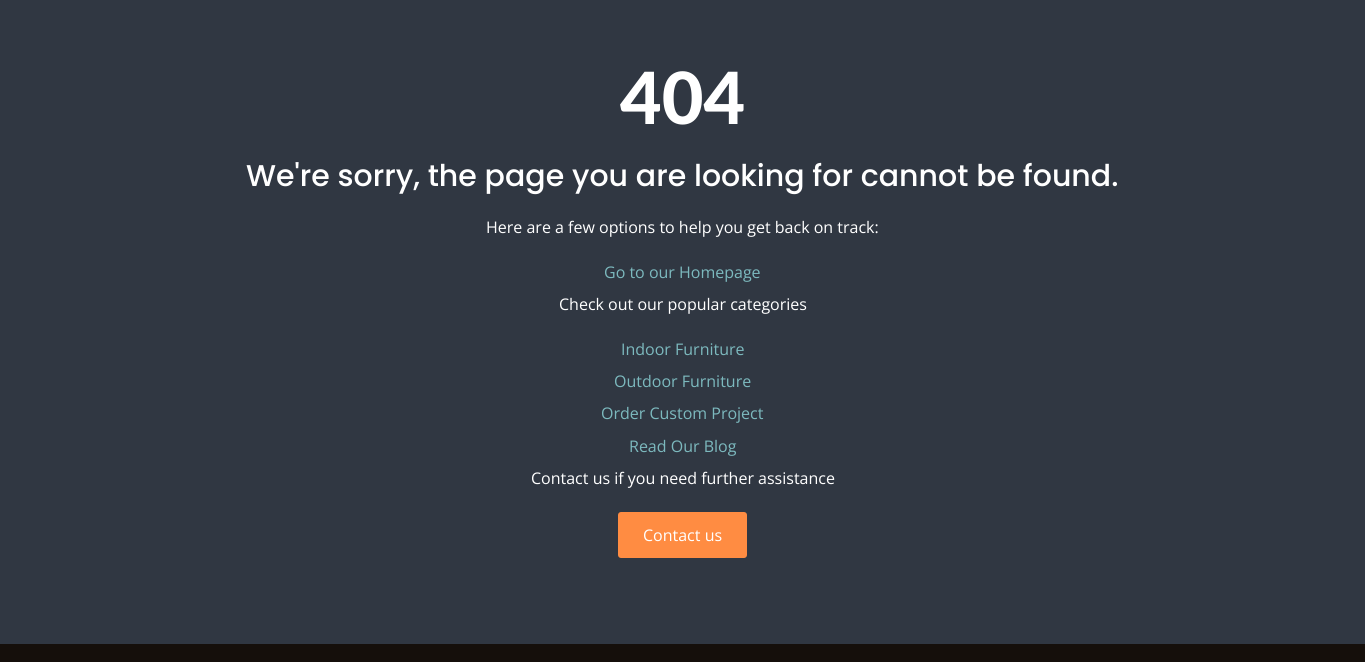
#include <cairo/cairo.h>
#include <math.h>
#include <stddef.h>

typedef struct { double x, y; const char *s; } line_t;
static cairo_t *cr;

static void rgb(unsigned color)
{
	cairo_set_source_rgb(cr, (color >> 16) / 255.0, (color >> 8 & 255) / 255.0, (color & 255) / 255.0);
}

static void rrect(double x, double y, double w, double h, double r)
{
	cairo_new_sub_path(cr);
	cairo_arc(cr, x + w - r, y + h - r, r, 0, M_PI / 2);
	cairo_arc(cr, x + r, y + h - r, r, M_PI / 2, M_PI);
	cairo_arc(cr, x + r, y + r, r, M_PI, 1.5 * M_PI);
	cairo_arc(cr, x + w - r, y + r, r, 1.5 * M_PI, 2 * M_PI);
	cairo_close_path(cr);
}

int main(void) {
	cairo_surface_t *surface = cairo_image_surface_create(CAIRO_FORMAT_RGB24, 1365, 662);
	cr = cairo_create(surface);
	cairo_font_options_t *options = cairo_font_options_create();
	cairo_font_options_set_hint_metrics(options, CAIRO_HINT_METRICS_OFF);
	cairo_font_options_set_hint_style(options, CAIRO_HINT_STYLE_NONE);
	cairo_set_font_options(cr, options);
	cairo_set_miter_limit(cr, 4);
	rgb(0x303742);
	cairo_paint(cr);
	rgb(0xff8c42);
	rrect(618, 512, 129, 46, 3);
	cairo_fill(cr);
	rgb(0x150f0b);
	cairo_rectangle(cr, 0, 644, 1365, 18);
	cairo_fill(cr);
	cairo_select_font_face(cr, "Lato Black", CAIRO_FONT_SLANT_NORMAL, CAIRO_FONT_WEIGHT_NORMAL);
	cairo_set_font_size(cr, 72);
	rgb(0xffffff);
	cairo_move_to(cr, 620, 124);
	cairo_show_text(cr, "404");
	cairo_select_font_face(cr, "Poppins Medium", CAIRO_FONT_SLANT_NORMAL, CAIRO_FONT_WEIGHT_NORMAL);
	cairo_set_font_size(cr, 30);
	cairo_move_to(cr, 246, 186);
	cairo_show_text(cr, "We're sorry, the page you are looking for cannot be found.");
	cairo_select_font_face(cr, "Open Sans", CAIRO_FONT_SLANT_NORMAL, CAIRO_FONT_WEIGHT_NORMAL);
	cairo_set_font_size(cr, 16);
	cairo_move_to(cr, 486, 233);
	cairo_show_text(cr, "Here are a few options to help you get back on track:");
	rgb(0x7cb9be);
	cairo_move_to(cr, 604, 278);
	cairo_show_text(cr, "Go to our Homepage");
	rgb(0xffffff);
	cairo_move_to(cr, 559, 310);
	cairo_show_text(cr, "Check out our popular categories");
	rgb(0x7cb9be);
	{
		static const line_t items[] = {
			{621, 355, "Indoor Furniture"},
			{614, 387, "Outdoor Furniture"},
			{601, 419, "Order Custom Project"},
			{629, 452, "Read Our Blog"},
		};
		for (size_t i = 0; i < sizeof items / sizeof *items; i++) {
			cairo_move_to(cr, items[i].x, items[i].y);
			cairo_show_text(cr, items[i].s);
		}
	}
	rgb(0xffffff);
	cairo_move_to(cr, 531, 484);
	cairo_show_text(cr, "Contact us if you need further assistance");
	cairo_move_to(cr, 643, 541);
	cairo_show_text(cr, "Contact us");
	cairo_surface_write_to_png(surface, "page.png");
	cairo_font_options_destroy(options);
	cairo_destroy(cr);
	cairo_surface_destroy(surface);
	return 0;
}
